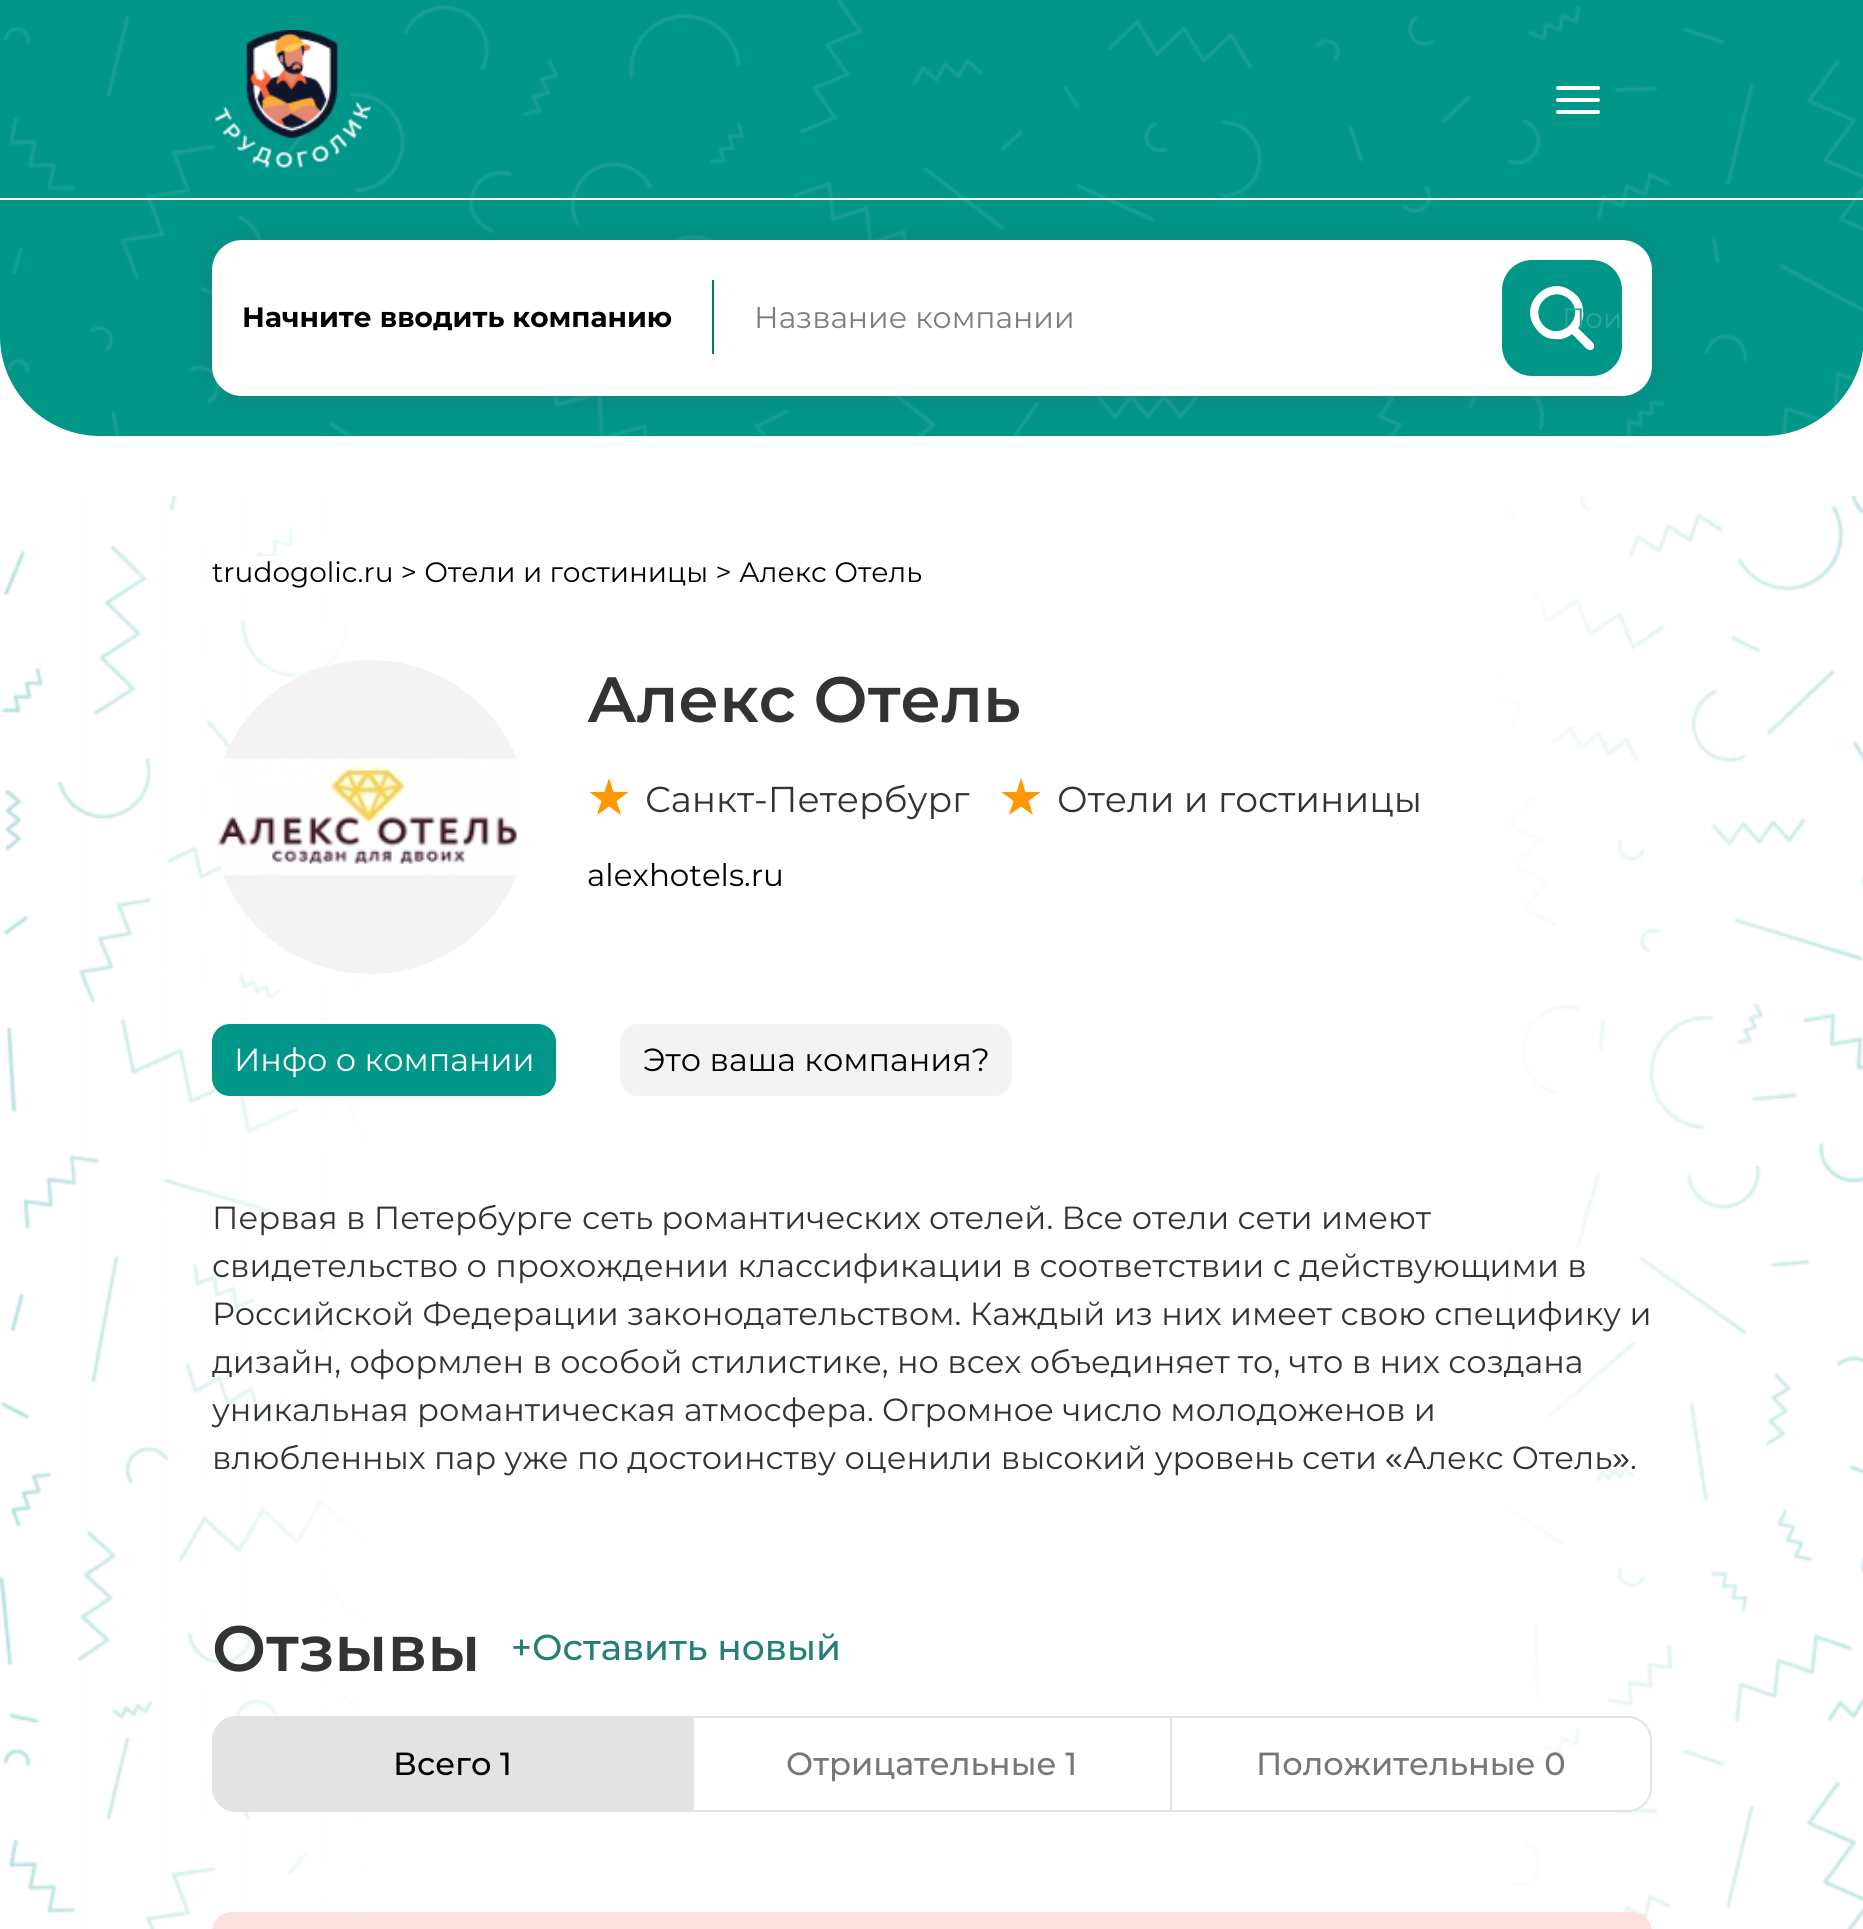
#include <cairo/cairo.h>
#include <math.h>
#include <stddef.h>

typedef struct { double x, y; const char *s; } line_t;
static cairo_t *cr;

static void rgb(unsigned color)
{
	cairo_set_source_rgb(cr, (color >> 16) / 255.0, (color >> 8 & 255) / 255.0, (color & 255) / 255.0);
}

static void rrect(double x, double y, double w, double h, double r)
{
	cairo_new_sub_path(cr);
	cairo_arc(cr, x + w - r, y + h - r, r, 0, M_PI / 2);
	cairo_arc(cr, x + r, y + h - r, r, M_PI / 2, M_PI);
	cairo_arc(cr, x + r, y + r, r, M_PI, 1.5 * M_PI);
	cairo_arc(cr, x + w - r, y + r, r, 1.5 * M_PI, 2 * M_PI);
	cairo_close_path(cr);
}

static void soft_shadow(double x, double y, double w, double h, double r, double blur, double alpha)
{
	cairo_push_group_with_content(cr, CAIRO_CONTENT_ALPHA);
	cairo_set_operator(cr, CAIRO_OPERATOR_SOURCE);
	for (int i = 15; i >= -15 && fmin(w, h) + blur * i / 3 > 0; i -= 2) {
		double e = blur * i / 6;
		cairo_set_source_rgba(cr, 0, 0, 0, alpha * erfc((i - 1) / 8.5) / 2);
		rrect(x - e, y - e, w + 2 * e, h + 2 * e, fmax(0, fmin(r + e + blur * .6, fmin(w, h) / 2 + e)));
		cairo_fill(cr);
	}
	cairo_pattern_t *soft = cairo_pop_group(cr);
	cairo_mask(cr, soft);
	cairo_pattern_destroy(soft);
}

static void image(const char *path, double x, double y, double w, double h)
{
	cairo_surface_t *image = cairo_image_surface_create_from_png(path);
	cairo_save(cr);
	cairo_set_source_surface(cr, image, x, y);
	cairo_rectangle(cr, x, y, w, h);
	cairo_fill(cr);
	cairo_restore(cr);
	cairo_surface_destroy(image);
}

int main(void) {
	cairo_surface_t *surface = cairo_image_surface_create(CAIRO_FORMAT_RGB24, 1863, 1929);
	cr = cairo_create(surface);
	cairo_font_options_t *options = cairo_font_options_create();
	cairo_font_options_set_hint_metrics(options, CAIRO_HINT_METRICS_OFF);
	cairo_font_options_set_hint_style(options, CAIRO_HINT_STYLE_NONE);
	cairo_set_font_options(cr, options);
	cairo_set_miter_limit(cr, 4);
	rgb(0xffffff);
	cairo_paint(cr);
	rgb(0x009788);
	cairo_new_path(cr);
	cairo_move_to(cr, 0, 0);
	cairo_line_to(cr, 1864, 0);
	cairo_line_to(cr, 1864, 336);
	cairo_curve_to(cr, 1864, 391, 1819, 436, 1764, 436);
	cairo_line_to(cr, 100, 436);
	cairo_curve_to(cr, 45, 436, 0, 391, 0, 336);
	cairo_close_path(cr);
	cairo_fill(cr);
	image("img/1.png", 4, 0, 1859, 436);
	rgb(0xffffff);
	cairo_rectangle(cr, 0, 198, 1863, 2);
	cairo_fill(cr);
	image("img/2.png", 214, 30, 158, 138);
	rrect(1556, 86, 44, 4, 2);
	cairo_fill(cr);
	rrect(1556, 98, 44, 4, 2);
	cairo_fill(cr);
	rrect(1556, 110, 44, 4, 2);
	cairo_fill(cr);
	rgb(0x3e4578);
	soft_shadow(212, 240, 1440, 156, 30, 16, 0.27);
	rgb(0xffffff);
	rrect(212, 240, 1440, 156, 30);
	cairo_fill(cr);
	rgb(0x00796a);
	cairo_rectangle(cr, 712, 280, 2, 74);
	cairo_fill(cr);
	rgb(0x009788);
	rrect(1502, 260, 120, 116, 30);
	cairo_fill(cr);
	cairo_save(cr);
	cairo_rectangle(cr, 1530, 286, 64, 64);
	cairo_clip(cr);
	rgb(0xffffff);
	cairo_new_path(cr);
	cairo_move_to(cr, 1578, 328);
	cairo_curve_to(cr, 1582, 323, 1584, 317, 1583, 311);
	cairo_curve_to(cr, 1583, 304, 1580, 298, 1575, 294);
	cairo_curve_to(cr, 1550, 270, 1514, 306, 1538, 331);
	cairo_curve_to(cr, 1542, 336, 1548, 339, 1555, 339);
	cairo_curve_to(cr, 1561, 340, 1567, 338, 1572, 334);
	cairo_line_to(cr, 1582, 344);
	cairo_curve_to(cr, 1584, 346, 1589, 353, 1593, 349);
	cairo_curve_to(cr, 1597, 345, 1590, 340, 1588, 338);
	cairo_close_path(cr);
	cairo_move_to(cr, 1544, 326);
	cairo_curve_to(cr, 1527, 308, 1552, 283, 1570, 300);
	cairo_curve_to(cr, 1586, 317, 1561, 342, 1544, 326);
	cairo_close_path(cr);
	cairo_fill(cr);
	cairo_restore(cr);
	image("img/3.png", 0, 496, 1863, 1433);
	rgb(0xffffff);
	cairo_rectangle(cr, 239, 556, 1395, 34);
	cairo_fill(cr);
	image("img/4.png", 217, 660, 301, 314);
	rgb(0xff9700);
	cairo_new_path(cr);
	cairo_move_to(cr, 609, 778);
	cairo_line_to(cr, 613.5, 792);
	cairo_line_to(cr, 628.5, 792);
	cairo_line_to(cr, 616.5, 801);
	cairo_line_to(cr, 621, 815);
	cairo_line_to(cr, 609, 806.5);
	cairo_line_to(cr, 597, 815);
	cairo_line_to(cr, 601.5, 801);
	cairo_line_to(cr, 589.5, 792);
	cairo_line_to(cr, 604.5, 792);
	cairo_close_path(cr);
	cairo_fill(cr);
	cairo_new_path(cr);
	cairo_move_to(cr, 1021, 778);
	cairo_line_to(cr, 1025.5, 792);
	cairo_line_to(cr, 1040.5, 792);
	cairo_line_to(cr, 1028.5, 801);
	cairo_line_to(cr, 1033, 815);
	cairo_line_to(cr, 1021, 806.5);
	cairo_line_to(cr, 1009, 815);
	cairo_line_to(cr, 1013.5, 801);
	cairo_line_to(cr, 1001.5, 792);
	cairo_line_to(cr, 1016.5, 792);
	cairo_close_path(cr);
	cairo_fill(cr);
	rgb(0x009788);
	rrect(213, 1025, 342, 70, 17);
	cairo_fill_preserve(cr);
	cairo_stroke(cr);
	rgb(0xf3f3f3);
	rrect(620, 1024, 392, 72, 18);
	cairo_fill(cr);
	rrect(213, 1717, 1438, 94, 23);
	rgb(0xe3e3e3);
	cairo_stroke(cr);
	cairo_new_path(cr);
	cairo_move_to(cr, 236, 1718);
	cairo_line_to(cr, 694, 1718);
	cairo_line_to(cr, 694, 1810);
	cairo_line_to(cr, 236, 1810);
	cairo_curve_to(cr, 224, 1810, 214, 1800, 214, 1788);
	cairo_line_to(cr, 214, 1740);
	cairo_curve_to(cr, 214, 1728, 224, 1718, 236, 1718);
	cairo_close_path(cr);
	cairo_fill(cr);
	cairo_rectangle(cr, 1170, 1718, 2, 92);
	cairo_fill(cr);
	rgb(0xfde0e0);
	rrect(212, 1912, 1440, 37, 20);
	cairo_fill(cr);
	cairo_select_font_face(cr, "Montserrat", CAIRO_FONT_SLANT_NORMAL, CAIRO_FONT_WEIGHT_BOLD);
	cairo_set_font_size(cr, 28);
	rgb(0x000000);
	cairo_move_to(cr, 242, 327);
	cairo_show_text(cr, "Начните вводить компанию");
	cairo_select_font_face(cr, "Montserrat", CAIRO_FONT_SLANT_NORMAL, CAIRO_FONT_WEIGHT_NORMAL);
	cairo_set_font_size(cr, 30);
	rgb(0x7d7d7d);
	cairo_move_to(cr, 754, 328);
	cairo_show_text(cr, "Название компании");
	cairo_set_font_size(cr, 28);
	rgb(0x27a79a);
	cairo_move_to(cr, 1562, 328);
	cairo_show_text(cr, "Пои");
	rgb(0x000000);
	cairo_move_to(cr, 212, 582);
	cairo_show_text(cr, "trudogolic.ru > Отели и гостиницы > Алекс Отель");
	cairo_select_font_face(cr, "Montserrat SemiBold", CAIRO_FONT_SLANT_NORMAL, CAIRO_FONT_WEIGHT_NORMAL);
	cairo_set_font_size(cr, 64);
	rgb(0x333333);
	cairo_move_to(cr, 587, 722);
	cairo_show_text(cr, "Алекс Отель");
	cairo_select_font_face(cr, "Montserrat", CAIRO_FONT_SLANT_NORMAL, CAIRO_FONT_WEIGHT_NORMAL);
	cairo_set_font_size(cr, 36);
	cairo_move_to(cr, 645, 812);
	cairo_show_text(cr, "Санкт-Петербург");
	cairo_move_to(cr, 1057, 812);
	cairo_show_text(cr, "Отели и гостиницы");
	cairo_set_font_size(cr, 31);
	rgb(0x000000);
	cairo_move_to(cr, 587, 886);
	cairo_show_text(cr, "alexhotels.ru");
	cairo_set_font_size(cr, 32);
	rgb(0xffffff);
	cairo_move_to(cr, 234, 1071);
	cairo_show_text(cr, "Инфо о компании");
	rgb(0x000000);
	cairo_move_to(cr, 643, 1071);
	cairo_show_text(cr, "Это ваша компания?");
	rgb(0x333333);
	{
		static const line_t items[] = {
			{212, 1229, "Первая в Петербурге"},
			{582, 1229, "сеть романтических отелей. Все отели сети имеют"},
			{212, 1277, "свидетельство о прохождении классификации в соответствии с действующими в"},
			{212, 1325, "Российской Федерации законодательством. Каждый из них имеет свою специфику и"},
			{212, 1373, "дизайн, оформлен в особой стилистике, но всех объединяет то, что в них создана"},
			{212, 1421, "уникальная романтическая атмосфера. Огромное число молодоженов и"},
			{212, 1469, "влюбленных пар уже по достоинству оценили высокий уровень сети"},
		};
		for (size_t i = 0; i < sizeof items / sizeof *items; i++) {
			cairo_move_to(cr, items[i].x, items[i].y);
			cairo_show_text(cr, items[i].s);
		}
	}
	cairo_select_font_face(cr, "Liberation Sans", CAIRO_FONT_SLANT_NORMAL, CAIRO_FONT_WEIGHT_NORMAL);
	cairo_move_to(cr, 1385, 1469);
	cairo_show_text(cr, "«");
	cairo_select_font_face(cr, "Montserrat", CAIRO_FONT_SLANT_NORMAL, CAIRO_FONT_WEIGHT_NORMAL);
	cairo_move_to(cr, 1403, 1469);
	cairo_show_text(cr, "Алекс Отель");
	cairo_select_font_face(cr, "Liberation Sans", CAIRO_FONT_SLANT_NORMAL, CAIRO_FONT_WEIGHT_NORMAL);
	cairo_move_to(cr, 1612, 1469);
	cairo_show_text(cr, "»");
	cairo_select_font_face(cr, "Montserrat", CAIRO_FONT_SLANT_NORMAL, CAIRO_FONT_WEIGHT_NORMAL);
	cairo_move_to(cr, 1630, 1469);
	cairo_show_text(cr, ".");
	cairo_select_font_face(cr, "Montserrat SemiBold", CAIRO_FONT_SLANT_NORMAL, CAIRO_FONT_WEIGHT_NORMAL);
	cairo_set_font_size(cr, 64);
	cairo_move_to(cr, 212, 1671);
	cairo_show_text(cr, "Отзывы");
	cairo_select_font_face(cr, "Montserrat Medium", CAIRO_FONT_SLANT_NORMAL, CAIRO_FONT_WEIGHT_NORMAL);
	cairo_set_font_size(cr, 36);
	rgb(0x257f75);
	cairo_move_to(cr, 511, 1660);
	cairo_show_text(cr, "+Оставить новый");
	cairo_set_font_size(cr, 32);
	rgb(0x000000);
	cairo_move_to(cr, 393, 1775);
	cairo_show_text(cr, "Всего 1");
	rgb(0x777777);
	cairo_move_to(cr, 786, 1775);
	cairo_show_text(cr, "Отрицательные 1");
	cairo_move_to(cr, 1256, 1775);
	cairo_show_text(cr, "Положительные 0");
	cairo_surface_write_to_png(surface, "page.png");
	cairo_font_options_destroy(options);
	cairo_destroy(cr);
	cairo_surface_destroy(surface);
	return 0;
}
